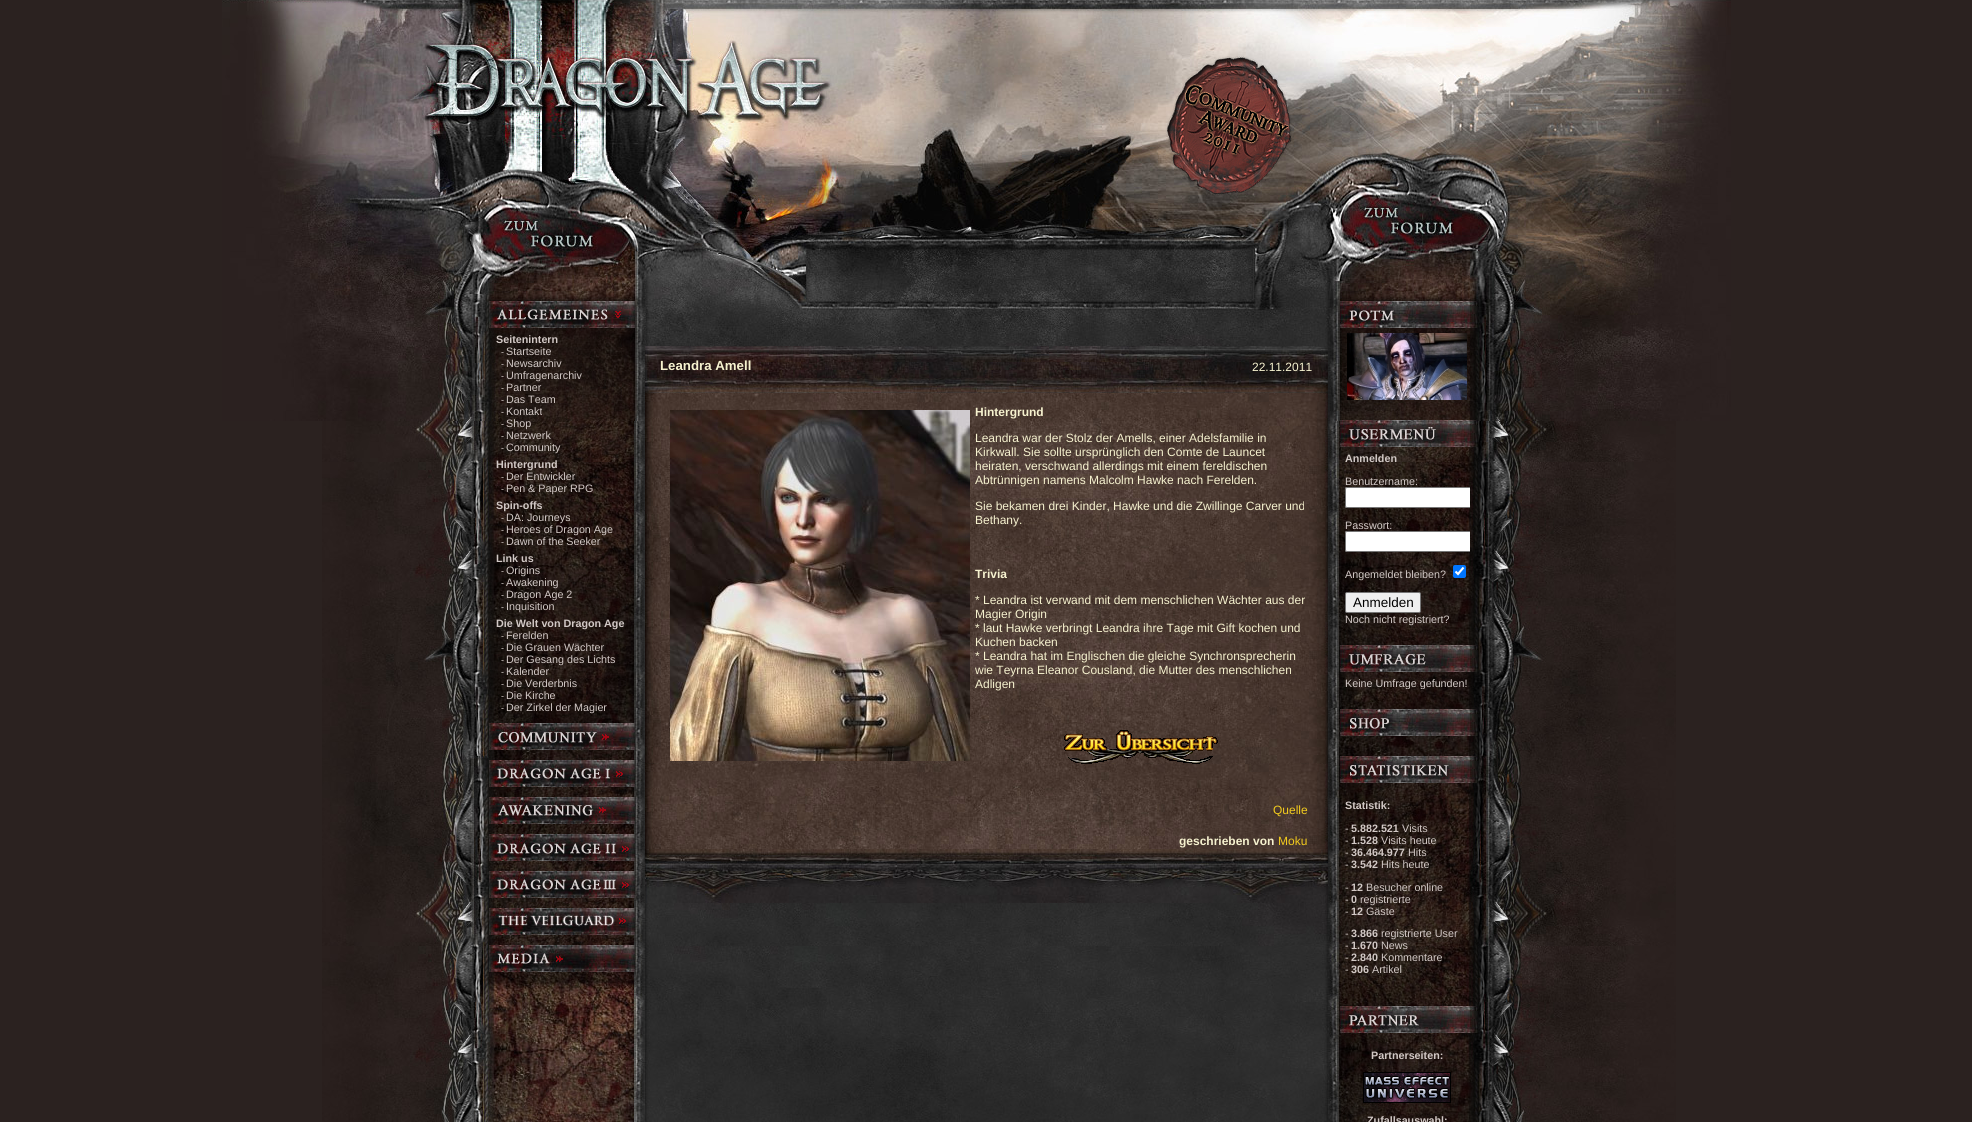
#include <cairo/cairo.h>
#include <math.h>
#include <stddef.h>

typedef struct { double x, y; const char *s; } line_t;
static cairo_t *cr;

static void rgb(unsigned color)
{
	cairo_set_source_rgb(cr, (color >> 16) / 255.0, (color >> 8 & 255) / 255.0, (color & 255) / 255.0);
}

static void rrect(double x, double y, double w, double h, double r)
{
	cairo_new_sub_path(cr);
	cairo_arc(cr, x + w - r, y + h - r, r, 0, M_PI / 2);
	cairo_arc(cr, x + r, y + h - r, r, M_PI / 2, M_PI);
	cairo_arc(cr, x + r, y + r, r, M_PI, 1.5 * M_PI);
	cairo_arc(cr, x + w - r, y + r, r, 1.5 * M_PI, 2 * M_PI);
	cairo_close_path(cr);
}

static void soft_shadow(double x, double y, double w, double h, double r, double blur, double alpha)
{
	cairo_push_group_with_content(cr, CAIRO_CONTENT_ALPHA);
	cairo_set_operator(cr, CAIRO_OPERATOR_SOURCE);
	for (int i = 15; i >= -15 && fmin(w, h) + blur * i / 3 > 0; i -= 2) {
		double e = blur * i / 6;
		cairo_set_source_rgba(cr, 0, 0, 0, alpha * erfc((i - 1) / 8.5) / 2);
		rrect(x - e, y - e, w + 2 * e, h + 2 * e, fmax(0, fmin(r + e + blur * .6, fmin(w, h) / 2 + e)));
		cairo_fill(cr);
	}
	cairo_pattern_t *soft = cairo_pop_group(cr);
	cairo_mask(cr, soft);
	cairo_pattern_destroy(soft);
}

static void image(const char *path, double x, double y, double w, double h)
{
	cairo_surface_t *image = cairo_image_surface_create_from_png(path);
	cairo_save(cr);
	cairo_set_source_surface(cr, image, x, y);
	cairo_rectangle(cr, x, y, w, h);
	cairo_fill(cr);
	cairo_restore(cr);
	cairo_surface_destroy(image);
}

int main(void) {
	cairo_surface_t *surface = cairo_image_surface_create(CAIRO_FORMAT_RGB24, 1972, 1122);
	cr = cairo_create(surface);
	cairo_font_options_t *options = cairo_font_options_create();
	cairo_font_options_set_hint_metrics(options, CAIRO_HINT_METRICS_OFF);
	cairo_font_options_set_hint_style(options, CAIRO_HINT_STYLE_NONE);
	cairo_set_font_options(cr, options);
	cairo_set_miter_limit(cr, 4);
	rgb(0x2b2220);
	cairo_paint(cr);
	image("img/1.png", 322, 421, 1354, 701);
	image("img/2.png", 222, 0, 1509, 421);
	image("img/3.png", 1165, 56, 127, 141);
	cairo_save(cr);
	cairo_set_fill_rule(cr, CAIRO_FILL_RULE_EVEN_ODD);
	cairo_new_path(cr);
	cairo_move_to(cr, 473, 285);
	cairo_line_to(cr, 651, 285);
	cairo_line_to(cr, 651, 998);
	cairo_line_to(cr, 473, 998);
	cairo_close_path(cr);
	cairo_move_to(cr, 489, 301);
	cairo_line_to(cr, 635, 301);
	cairo_line_to(cr, 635, 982);
	cairo_line_to(cr, 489, 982);
	cairo_close_path(cr);
	cairo_clip(cr);
	rgb(0x000000);
	soft_shadow(489, 301, 146, 681, 0, 5, 1);
	cairo_restore(cr);
	cairo_set_source_rgba(cr, 0, 0, 0, 0.5);
	cairo_rectangle(cr, 489, 328, 146, 654);
	cairo_fill(cr);
	image("img/4.png", 489, 301, 146, 27);
	image("img/5.png", 497, 309, 124, 11);
	image("img/4.png", 489, 723, 146, 27);
	image("img/6.png", 498, 732, 111, 11);
	image("img/4.png", 489, 760, 146, 27);
	image("img/7.png", 497, 768, 126, 11);
	image("img/4.png", 489, 797, 146, 27);
	image("img/8.png", 498, 805, 108, 11);
	image("img/4.png", 489, 834, 146, 27);
	image("img/9.png", 497, 843, 132, 11);
	image("img/4.png", 489, 871, 146, 27);
	image("img/10.png", 497, 879, 132, 11);
	image("img/4.png", 489, 908, 146, 27);
	image("img/11.png", 498, 914, 128, 13);
	image("img/4.png", 489, 945, 146, 27);
	image("img/12.png", 497, 953, 66, 11);
	cairo_save(cr);
	cairo_set_fill_rule(cr, CAIRO_FILL_RULE_EVEN_ODD);
	cairo_new_path(cr);
	cairo_move_to(cr, 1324, 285);
	cairo_line_to(cr, 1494, 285);
	cairo_line_to(cr, 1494, 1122);
	cairo_line_to(cr, 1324, 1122);
	cairo_close_path(cr);
	cairo_move_to(cr, 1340, 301);
	cairo_line_to(cr, 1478, 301);
	cairo_line_to(cr, 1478, 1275);
	cairo_line_to(cr, 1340, 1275);
	cairo_close_path(cr);
	cairo_clip(cr);
	rgb(0x000000);
	soft_shadow(1340, 301, 138, 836, 0, 5, 1);
	cairo_restore(cr);
	image("img/13.png", 645, 393, 683, 456);
	image("img/14.png", 645, 346, 683, 47);
	image("img/15.png", 670, 410, 300, 351);
	image("img/16.png", 1064, 730, 154, 34);
	image("img/17.png", 645, 849, 683, 54);
	cairo_rectangle(cr, 1340, 328, 138, 794);
	cairo_fill(cr);
	image("img/18.png", 1340, 301, 138, 27);
	image("img/19.png", 1348, 308, 47, 15);
	image("img/20.png", 1347, 333, 120, 67);
	image("img/18.png", 1340, 420, 138, 27);
	image("img/21.png", 1349, 426, 87, 16);
	rgb(0xffffff);
	cairo_new_path(cr);
	cairo_move_to(cr, 1347, 487);
	cairo_line_to(cr, 1470, 487);
	cairo_line_to(cr, 1470, 508);
	cairo_line_to(cr, 1347, 508);
	cairo_curve_to(cr, 1346, 508, 1345, 507, 1345, 506);
	cairo_line_to(cr, 1345, 489);
	cairo_curve_to(cr, 1345, 488, 1346, 487, 1347, 487);
	cairo_close_path(cr);
	cairo_fill(cr);
	cairo_save(cr);
	cairo_rectangle(cr, 1345, 452, 125, 173);
	cairo_clip(cr);
	rrect(1345.5, 487.5, 152, 20, 1.5);
	rgb(0x767676);
	cairo_set_line_width(cr, 1);
	cairo_stroke(cr);
	cairo_restore(cr);
	cairo_new_path(cr);
	cairo_move_to(cr, 1347, 531);
	cairo_line_to(cr, 1470, 531);
	cairo_line_to(cr, 1470, 552);
	cairo_line_to(cr, 1347, 552);
	cairo_curve_to(cr, 1346, 552, 1345, 551, 1345, 550);
	cairo_line_to(cr, 1345, 533);
	cairo_curve_to(cr, 1345, 532, 1346, 531, 1347, 531);
	cairo_close_path(cr);
	cairo_fill(cr);
	cairo_save(cr);
	cairo_rectangle(cr, 1345, 452, 125, 173);
	cairo_clip(cr);
	rrect(1345.5, 531.5, 152, 20, 1.5);
	rgb(0x767676);
	cairo_set_line_width(cr, 1);
	cairo_stroke(cr);
	cairo_restore(cr);
	rgb(0x0075ff);
	rrect(1453, 565, 13, 13, 2);
	cairo_fill(cr);
	cairo_new_path(cr);
	cairo_move_to(cr, 1455.5, 571.5);
	cairo_line_to(cr, 1458, 574);
	cairo_line_to(cr, 1463.5, 567.5);
	rgb(0xffffff);
	cairo_set_line_width(cr, 2.1);
	cairo_stroke(cr);
	rgb(0xefefef);
	rrect(1345.5, 592.5, 75, 20, 1.5);
	cairo_fill_preserve(cr);
	rgb(0x767676);
	cairo_set_line_width(cr, 1);
	cairo_stroke(cr);
	image("img/18.png", 1340, 645, 138, 27);
	image("img/22.png", 1349, 652, 77, 15);
	image("img/18.png", 1340, 709, 138, 27);
	image("img/23.png", 1348, 716, 43, 15);
	image("img/18.png", 1340, 756, 138, 27);
	image("img/24.png", 1348, 763, 101, 15);
	image("img/18.png", 1340, 1006, 138, 27);
	image("img/25.png", 1348, 1013, 71, 15);
	image("img/26.png", 1363, 1072, 88, 31);
	cairo_select_font_face(cr, "Liberation Sans", CAIRO_FONT_SLANT_NORMAL, CAIRO_FONT_WEIGHT_BOLD);
	cairo_set_font_size(cr, 10.75);
	rgb(0xd2c9c6);
	cairo_move_to(cr, 496, 343);
	cairo_show_text(cr, "Seitenintern");
	cairo_select_font_face(cr, "Liberation Sans", CAIRO_FONT_SLANT_NORMAL, CAIRO_FONT_WEIGHT_NORMAL);
	cairo_set_font_size(cr, 9);
	cairo_move_to(cr, 501, 355);
	cairo_show_text(cr, "-");
	cairo_set_font_size(cr, 10.75);
	cairo_move_to(cr, 506, 355);
	cairo_show_text(cr, "Startseite");
	cairo_set_font_size(cr, 9);
	cairo_move_to(cr, 501, 367);
	cairo_show_text(cr, "-");
	cairo_set_font_size(cr, 10.75);
	cairo_move_to(cr, 506, 367);
	cairo_show_text(cr, "Newsarchiv");
	cairo_set_font_size(cr, 9);
	cairo_move_to(cr, 501, 379);
	cairo_show_text(cr, "-");
	cairo_set_font_size(cr, 10.75);
	cairo_move_to(cr, 506, 379);
	cairo_show_text(cr, "Umfragenarchiv");
	cairo_set_font_size(cr, 9);
	cairo_move_to(cr, 501, 391);
	cairo_show_text(cr, "-");
	cairo_set_font_size(cr, 10.75);
	cairo_move_to(cr, 506, 391);
	cairo_show_text(cr, "Partner");
	cairo_set_font_size(cr, 9);
	cairo_move_to(cr, 501, 403);
	cairo_show_text(cr, "-");
	cairo_set_font_size(cr, 10.75);
	cairo_move_to(cr, 506, 403);
	cairo_show_text(cr, "Das Team");
	cairo_set_font_size(cr, 9);
	cairo_move_to(cr, 501, 415);
	cairo_show_text(cr, "-");
	cairo_set_font_size(cr, 10.75);
	cairo_move_to(cr, 506, 415);
	cairo_show_text(cr, "Kontakt");
	cairo_set_font_size(cr, 9);
	cairo_move_to(cr, 501, 427);
	cairo_show_text(cr, "-");
	cairo_set_font_size(cr, 10.75);
	cairo_move_to(cr, 506, 427);
	cairo_show_text(cr, "Shop");
	cairo_set_font_size(cr, 9);
	cairo_move_to(cr, 501, 439);
	cairo_show_text(cr, "-");
	cairo_set_font_size(cr, 10.75);
	cairo_move_to(cr, 506, 439);
	cairo_show_text(cr, "Netzwerk");
	cairo_set_font_size(cr, 9);
	cairo_move_to(cr, 501, 451);
	cairo_show_text(cr, "-");
	cairo_set_font_size(cr, 10.75);
	cairo_move_to(cr, 506, 451);
	cairo_show_text(cr, "Community");
	cairo_select_font_face(cr, "Liberation Sans", CAIRO_FONT_SLANT_NORMAL, CAIRO_FONT_WEIGHT_BOLD);
	cairo_move_to(cr, 496, 468);
	cairo_show_text(cr, "Hintergrund");
	cairo_select_font_face(cr, "Liberation Sans", CAIRO_FONT_SLANT_NORMAL, CAIRO_FONT_WEIGHT_NORMAL);
	cairo_set_font_size(cr, 9);
	cairo_move_to(cr, 501, 480);
	cairo_show_text(cr, "-");
	cairo_set_font_size(cr, 10.75);
	cairo_move_to(cr, 506, 480);
	cairo_show_text(cr, "Der Entwickler");
	cairo_set_font_size(cr, 9);
	cairo_move_to(cr, 501, 492);
	cairo_show_text(cr, "-");
	cairo_set_font_size(cr, 10.75);
	cairo_move_to(cr, 506, 492);
	cairo_show_text(cr, "Pen & Paper RPG");
	cairo_select_font_face(cr, "Liberation Sans", CAIRO_FONT_SLANT_NORMAL, CAIRO_FONT_WEIGHT_BOLD);
	cairo_move_to(cr, 496, 509);
	cairo_show_text(cr, "Spin-offs");
	cairo_select_font_face(cr, "Liberation Sans", CAIRO_FONT_SLANT_NORMAL, CAIRO_FONT_WEIGHT_NORMAL);
	cairo_set_font_size(cr, 9);
	cairo_move_to(cr, 501, 521);
	cairo_show_text(cr, "-");
	cairo_set_font_size(cr, 10.75);
	cairo_move_to(cr, 506, 521);
	cairo_show_text(cr, "DA: Journeys");
	cairo_set_font_size(cr, 9);
	cairo_move_to(cr, 501, 533);
	cairo_show_text(cr, "-");
	cairo_set_font_size(cr, 10.75);
	cairo_move_to(cr, 506, 533);
	cairo_show_text(cr, "Heroes of Dragon Age");
	cairo_set_font_size(cr, 9);
	cairo_move_to(cr, 501, 545);
	cairo_show_text(cr, "-");
	cairo_set_font_size(cr, 10.75);
	cairo_move_to(cr, 506, 545);
	cairo_show_text(cr, "Dawn of the Seeker");
	cairo_select_font_face(cr, "Liberation Sans", CAIRO_FONT_SLANT_NORMAL, CAIRO_FONT_WEIGHT_BOLD);
	cairo_move_to(cr, 496, 562);
	cairo_show_text(cr, "Link us");
	cairo_select_font_face(cr, "Liberation Sans", CAIRO_FONT_SLANT_NORMAL, CAIRO_FONT_WEIGHT_NORMAL);
	cairo_set_font_size(cr, 9);
	cairo_move_to(cr, 501, 574);
	cairo_show_text(cr, "-");
	cairo_set_font_size(cr, 10.75);
	cairo_move_to(cr, 506, 574);
	cairo_show_text(cr, "Origins");
	cairo_set_font_size(cr, 9);
	cairo_move_to(cr, 501, 586);
	cairo_show_text(cr, "-");
	cairo_set_font_size(cr, 10.75);
	cairo_move_to(cr, 506, 586);
	cairo_show_text(cr, "Awakening");
	cairo_set_font_size(cr, 9);
	cairo_move_to(cr, 501, 598);
	cairo_show_text(cr, "-");
	cairo_set_font_size(cr, 10.75);
	cairo_move_to(cr, 506, 598);
	cairo_show_text(cr, "Dragon Age 2");
	cairo_set_font_size(cr, 9);
	cairo_move_to(cr, 501, 610);
	cairo_show_text(cr, "-");
	cairo_set_font_size(cr, 10.75);
	cairo_move_to(cr, 506, 610);
	cairo_show_text(cr, "Inquisition");
	cairo_select_font_face(cr, "Liberation Sans", CAIRO_FONT_SLANT_NORMAL, CAIRO_FONT_WEIGHT_BOLD);
	cairo_move_to(cr, 496, 627);
	cairo_show_text(cr, "Die Welt von Dragon Age");
	cairo_select_font_face(cr, "Liberation Sans", CAIRO_FONT_SLANT_NORMAL, CAIRO_FONT_WEIGHT_NORMAL);
	cairo_set_font_size(cr, 9);
	cairo_move_to(cr, 501, 639);
	cairo_show_text(cr, "-");
	cairo_set_font_size(cr, 10.75);
	cairo_move_to(cr, 506, 639);
	cairo_show_text(cr, "Ferelden");
	cairo_set_font_size(cr, 9);
	cairo_move_to(cr, 501, 651);
	cairo_show_text(cr, "-");
	cairo_set_font_size(cr, 10.75);
	cairo_move_to(cr, 506, 651);
	cairo_show_text(cr, "Die Grauen Wächter");
	cairo_set_font_size(cr, 9);
	cairo_move_to(cr, 501, 663);
	cairo_show_text(cr, "-");
	cairo_set_font_size(cr, 10.75);
	cairo_move_to(cr, 506, 663);
	cairo_show_text(cr, "Der Gesang des Lichts");
	cairo_set_font_size(cr, 9);
	cairo_move_to(cr, 501, 675);
	cairo_show_text(cr, "-");
	cairo_set_font_size(cr, 10.75);
	cairo_move_to(cr, 506, 675);
	cairo_show_text(cr, "Kalender");
	cairo_set_font_size(cr, 9);
	cairo_move_to(cr, 501, 687);
	cairo_show_text(cr, "-");
	cairo_set_font_size(cr, 10.75);
	cairo_move_to(cr, 506, 687);
	cairo_show_text(cr, "Die Verderbnis");
	cairo_set_font_size(cr, 9);
	cairo_move_to(cr, 501, 699);
	cairo_show_text(cr, "-");
	cairo_set_font_size(cr, 10.75);
	cairo_move_to(cr, 506, 699);
	cairo_show_text(cr, "Die Kirche");
	cairo_set_font_size(cr, 9);
	cairo_move_to(cr, 501, 711);
	cairo_show_text(cr, "-");
	cairo_set_font_size(cr, 10.75);
	cairo_move_to(cr, 506, 711);
	cairo_show_text(cr, "Der Zirkel der Magier");
	cairo_select_font_face(cr, "Liberation Sans", CAIRO_FONT_SLANT_NORMAL, CAIRO_FONT_WEIGHT_BOLD);
	cairo_set_font_size(cr, 13.25);
	rgb(0xf6f2cf);
	cairo_move_to(cr, 660, 370);
	cairo_show_text(cr, "Leandra Amell");
	cairo_select_font_face(cr, "Liberation Sans", CAIRO_FONT_SLANT_NORMAL, CAIRO_FONT_WEIGHT_NORMAL);
	cairo_set_font_size(cr, 12);
	cairo_move_to(cr, 1252, 371);
	cairo_show_text(cr, "22.11.2011");
	cairo_select_font_face(cr, "Liberation Sans", CAIRO_FONT_SLANT_NORMAL, CAIRO_FONT_WEIGHT_BOLD);
	cairo_move_to(cr, 975, 416);
	cairo_show_text(cr, "Hintergrund");
	cairo_select_font_face(cr, "Liberation Sans", CAIRO_FONT_SLANT_NORMAL, CAIRO_FONT_WEIGHT_NORMAL);
	{
		static const line_t items[] = {
			{975, 442, "Leandra war der Stolz der Amells, einer Adelsfamilie in"},
			{975, 456, "Kirkwall. Sie sollte ursprünglich den Comte de Launcet"},
			{975, 470, "heiraten, verschwand allerdings mit einem fereldischen"},
			{975, 484, "Abtrünnigen namens Malcolm Hawke nach Ferelden."},
			{975, 510, "Sie bekamen drei Kinder, Hawke und die Zwillinge Carver und"},
			{975, 524, "Bethany."},
		};
		for (size_t i = 0; i < sizeof items / sizeof *items; i++) {
			cairo_move_to(cr, items[i].x, items[i].y);
			cairo_show_text(cr, items[i].s);
		}
	}
	cairo_select_font_face(cr, "Liberation Sans", CAIRO_FONT_SLANT_NORMAL, CAIRO_FONT_WEIGHT_BOLD);
	cairo_move_to(cr, 975, 578);
	cairo_show_text(cr, "Trivia");
	cairo_select_font_face(cr, "Liberation Sans", CAIRO_FONT_SLANT_NORMAL, CAIRO_FONT_WEIGHT_NORMAL);
	{
		static const line_t items[] = {
			{975, 604, "* Leandra ist verwand mit dem menschlichen Wächter aus der"},
			{975, 618, "Magier Origin"},
			{975, 632, "* laut Hawke verbringt Leandra ihre Tage mit Gift kochen und"},
			{975, 646, "Kuchen backen"},
			{975, 660, "* Leandra hat im Englischen die gleiche Synchronsprecherin"},
			{975, 674, "wie Teyrna Eleanor Cousland, die Mutter des menschlichen"},
			{975, 688, "Adligen"},
		};
		for (size_t i = 0; i < sizeof items / sizeof *items; i++) {
			cairo_move_to(cr, items[i].x, items[i].y);
			cairo_show_text(cr, items[i].s);
		}
	}
	rgb(0xf2cb1d);
	cairo_move_to(cr, 1273, 814);
	cairo_show_text(cr, "Quelle");
	cairo_select_font_face(cr, "Liberation Sans", CAIRO_FONT_SLANT_NORMAL, CAIRO_FONT_WEIGHT_BOLD);
	rgb(0xf6f2cf);
	cairo_move_to(cr, 1179, 845);
	cairo_show_text(cr, "geschrieben von");
	cairo_select_font_face(cr, "Liberation Sans", CAIRO_FONT_SLANT_NORMAL, CAIRO_FONT_WEIGHT_NORMAL);
	rgb(0xf2cb1d);
	cairo_move_to(cr, 1278, 845);
	cairo_show_text(cr, "Moku");
	cairo_select_font_face(cr, "Liberation Sans", CAIRO_FONT_SLANT_NORMAL, CAIRO_FONT_WEIGHT_BOLD);
	cairo_set_font_size(cr, 10.75);
	rgb(0xd2c9c6);
	cairo_move_to(cr, 1345, 462);
	cairo_show_text(cr, "Anmelden");
	cairo_select_font_face(cr, "Liberation Sans", CAIRO_FONT_SLANT_NORMAL, CAIRO_FONT_WEIGHT_NORMAL);
	{
		static const line_t items[] = {
			{1345, 485, "Benutzername:"},
			{1345, 529, "Passwort:"},
			{1345, 578, "Angemeldet bleiben?"},
		};
		for (size_t i = 0; i < sizeof items / sizeof *items; i++) {
			cairo_move_to(cr, items[i].x, items[i].y);
			cairo_show_text(cr, items[i].s);
		}
	}
	cairo_set_font_size(cr, 13.5);
	rgb(0x000000);
	cairo_move_to(cr, 1353, 607);
	cairo_show_text(cr, "Anmelden");
	cairo_set_font_size(cr, 10.75);
	rgb(0xd2c9c6);
	cairo_move_to(cr, 1345, 623);
	cairo_show_text(cr, "Noch nicht registriert?");
	cairo_save(cr);
	cairo_rectangle(cr, 1345, 677, 125, 12);
	cairo_clip(cr);
	cairo_move_to(cr, 1345, 687);
	cairo_show_text(cr, "Keine Umfrage gefunden!");
	cairo_restore(cr);
	cairo_select_font_face(cr, "Liberation Sans", CAIRO_FONT_SLANT_NORMAL, CAIRO_FONT_WEIGHT_BOLD);
	cairo_move_to(cr, 1345, 809);
	cairo_show_text(cr, "Statistik:");
	cairo_select_font_face(cr, "Liberation Sans", CAIRO_FONT_SLANT_NORMAL, CAIRO_FONT_WEIGHT_NORMAL);
	cairo_move_to(cr, 1345, 832);
	cairo_show_text(cr, "-");
	cairo_select_font_face(cr, "Liberation Sans", CAIRO_FONT_SLANT_NORMAL, CAIRO_FONT_WEIGHT_BOLD);
	cairo_move_to(cr, 1351, 832);
	cairo_show_text(cr, "5.882.521");
	cairo_select_font_face(cr, "Liberation Sans", CAIRO_FONT_SLANT_NORMAL, CAIRO_FONT_WEIGHT_NORMAL);
	cairo_move_to(cr, 1402, 832);
	cairo_show_text(cr, "Visits");
	cairo_move_to(cr, 1345, 844);
	cairo_show_text(cr, "-");
	cairo_select_font_face(cr, "Liberation Sans", CAIRO_FONT_SLANT_NORMAL, CAIRO_FONT_WEIGHT_BOLD);
	cairo_move_to(cr, 1351, 844);
	cairo_show_text(cr, "1.528");
	cairo_select_font_face(cr, "Liberation Sans", CAIRO_FONT_SLANT_NORMAL, CAIRO_FONT_WEIGHT_NORMAL);
	cairo_move_to(cr, 1381, 844);
	cairo_show_text(cr, "Visits heute");
	cairo_move_to(cr, 1345, 856);
	cairo_show_text(cr, "-");
	cairo_select_font_face(cr, "Liberation Sans", CAIRO_FONT_SLANT_NORMAL, CAIRO_FONT_WEIGHT_BOLD);
	cairo_move_to(cr, 1351, 856);
	cairo_show_text(cr, "36.464.977");
	cairo_select_font_face(cr, "Liberation Sans", CAIRO_FONT_SLANT_NORMAL, CAIRO_FONT_WEIGHT_NORMAL);
	cairo_move_to(cr, 1408, 856);
	cairo_show_text(cr, "Hits");
	cairo_move_to(cr, 1345, 868);
	cairo_show_text(cr, "-");
	cairo_select_font_face(cr, "Liberation Sans", CAIRO_FONT_SLANT_NORMAL, CAIRO_FONT_WEIGHT_BOLD);
	cairo_move_to(cr, 1351, 868);
	cairo_show_text(cr, "3.542");
	cairo_select_font_face(cr, "Liberation Sans", CAIRO_FONT_SLANT_NORMAL, CAIRO_FONT_WEIGHT_NORMAL);
	cairo_move_to(cr, 1381, 868);
	cairo_show_text(cr, "Hits heute");
	cairo_move_to(cr, 1345, 891);
	cairo_show_text(cr, "-");
	cairo_select_font_face(cr, "Liberation Sans", CAIRO_FONT_SLANT_NORMAL, CAIRO_FONT_WEIGHT_BOLD);
	cairo_move_to(cr, 1351, 891);
	cairo_show_text(cr, "12");
	cairo_select_font_face(cr, "Liberation Sans", CAIRO_FONT_SLANT_NORMAL, CAIRO_FONT_WEIGHT_NORMAL);
	cairo_move_to(cr, 1366, 891);
	cairo_show_text(cr, "Besucher online");
	cairo_move_to(cr, 1345, 903);
	cairo_show_text(cr, "-");
	cairo_select_font_face(cr, "Liberation Sans", CAIRO_FONT_SLANT_NORMAL, CAIRO_FONT_WEIGHT_BOLD);
	cairo_move_to(cr, 1351, 903);
	cairo_show_text(cr, "0");
	cairo_select_font_face(cr, "Liberation Sans", CAIRO_FONT_SLANT_NORMAL, CAIRO_FONT_WEIGHT_NORMAL);
	cairo_move_to(cr, 1360, 903);
	cairo_show_text(cr, "registrierte");
	cairo_move_to(cr, 1345, 915);
	cairo_show_text(cr, "-");
	cairo_select_font_face(cr, "Liberation Sans", CAIRO_FONT_SLANT_NORMAL, CAIRO_FONT_WEIGHT_BOLD);
	cairo_move_to(cr, 1351, 915);
	cairo_show_text(cr, "12");
	cairo_select_font_face(cr, "Liberation Sans", CAIRO_FONT_SLANT_NORMAL, CAIRO_FONT_WEIGHT_NORMAL);
	cairo_move_to(cr, 1366, 915);
	cairo_show_text(cr, "Gäste");
	cairo_move_to(cr, 1345, 937);
	cairo_show_text(cr, "-");
	cairo_select_font_face(cr, "Liberation Sans", CAIRO_FONT_SLANT_NORMAL, CAIRO_FONT_WEIGHT_BOLD);
	cairo_move_to(cr, 1351, 937);
	cairo_show_text(cr, "3.866");
	cairo_select_font_face(cr, "Liberation Sans", CAIRO_FONT_SLANT_NORMAL, CAIRO_FONT_WEIGHT_NORMAL);
	cairo_move_to(cr, 1381, 937);
	cairo_show_text(cr, "registrierte User");
	cairo_move_to(cr, 1345, 949);
	cairo_show_text(cr, "-");
	cairo_select_font_face(cr, "Liberation Sans", CAIRO_FONT_SLANT_NORMAL, CAIRO_FONT_WEIGHT_BOLD);
	cairo_move_to(cr, 1351, 949);
	cairo_show_text(cr, "1.670");
	cairo_select_font_face(cr, "Liberation Sans", CAIRO_FONT_SLANT_NORMAL, CAIRO_FONT_WEIGHT_NORMAL);
	cairo_move_to(cr, 1381, 949);
	cairo_show_text(cr, "News");
	cairo_move_to(cr, 1345, 961);
	cairo_show_text(cr, "-");
	cairo_select_font_face(cr, "Liberation Sans", CAIRO_FONT_SLANT_NORMAL, CAIRO_FONT_WEIGHT_BOLD);
	cairo_move_to(cr, 1351, 961);
	cairo_show_text(cr, "2.840");
	cairo_select_font_face(cr, "Liberation Sans", CAIRO_FONT_SLANT_NORMAL, CAIRO_FONT_WEIGHT_NORMAL);
	cairo_move_to(cr, 1381, 961);
	cairo_show_text(cr, "Kommentare");
	cairo_move_to(cr, 1345, 973);
	cairo_show_text(cr, "-");
	cairo_select_font_face(cr, "Liberation Sans", CAIRO_FONT_SLANT_NORMAL, CAIRO_FONT_WEIGHT_BOLD);
	cairo_move_to(cr, 1351, 973);
	cairo_show_text(cr, "306");
	cairo_select_font_face(cr, "Liberation Sans", CAIRO_FONT_SLANT_NORMAL, CAIRO_FONT_WEIGHT_NORMAL);
	cairo_move_to(cr, 1372, 973);
	cairo_show_text(cr, "Artikel");
	cairo_select_font_face(cr, "Liberation Sans", CAIRO_FONT_SLANT_NORMAL, CAIRO_FONT_WEIGHT_BOLD);
	cairo_move_to(cr, 1371, 1059);
	cairo_show_text(cr, "Partnerseiten:");
	cairo_move_to(cr, 1367, 1124);
	cairo_show_text(cr, "Zufallsauswahl:");
	cairo_surface_write_to_png(surface, "page.png");
	cairo_font_options_destroy(options);
	cairo_destroy(cr);
	cairo_surface_destroy(surface);
	return 0;
}
